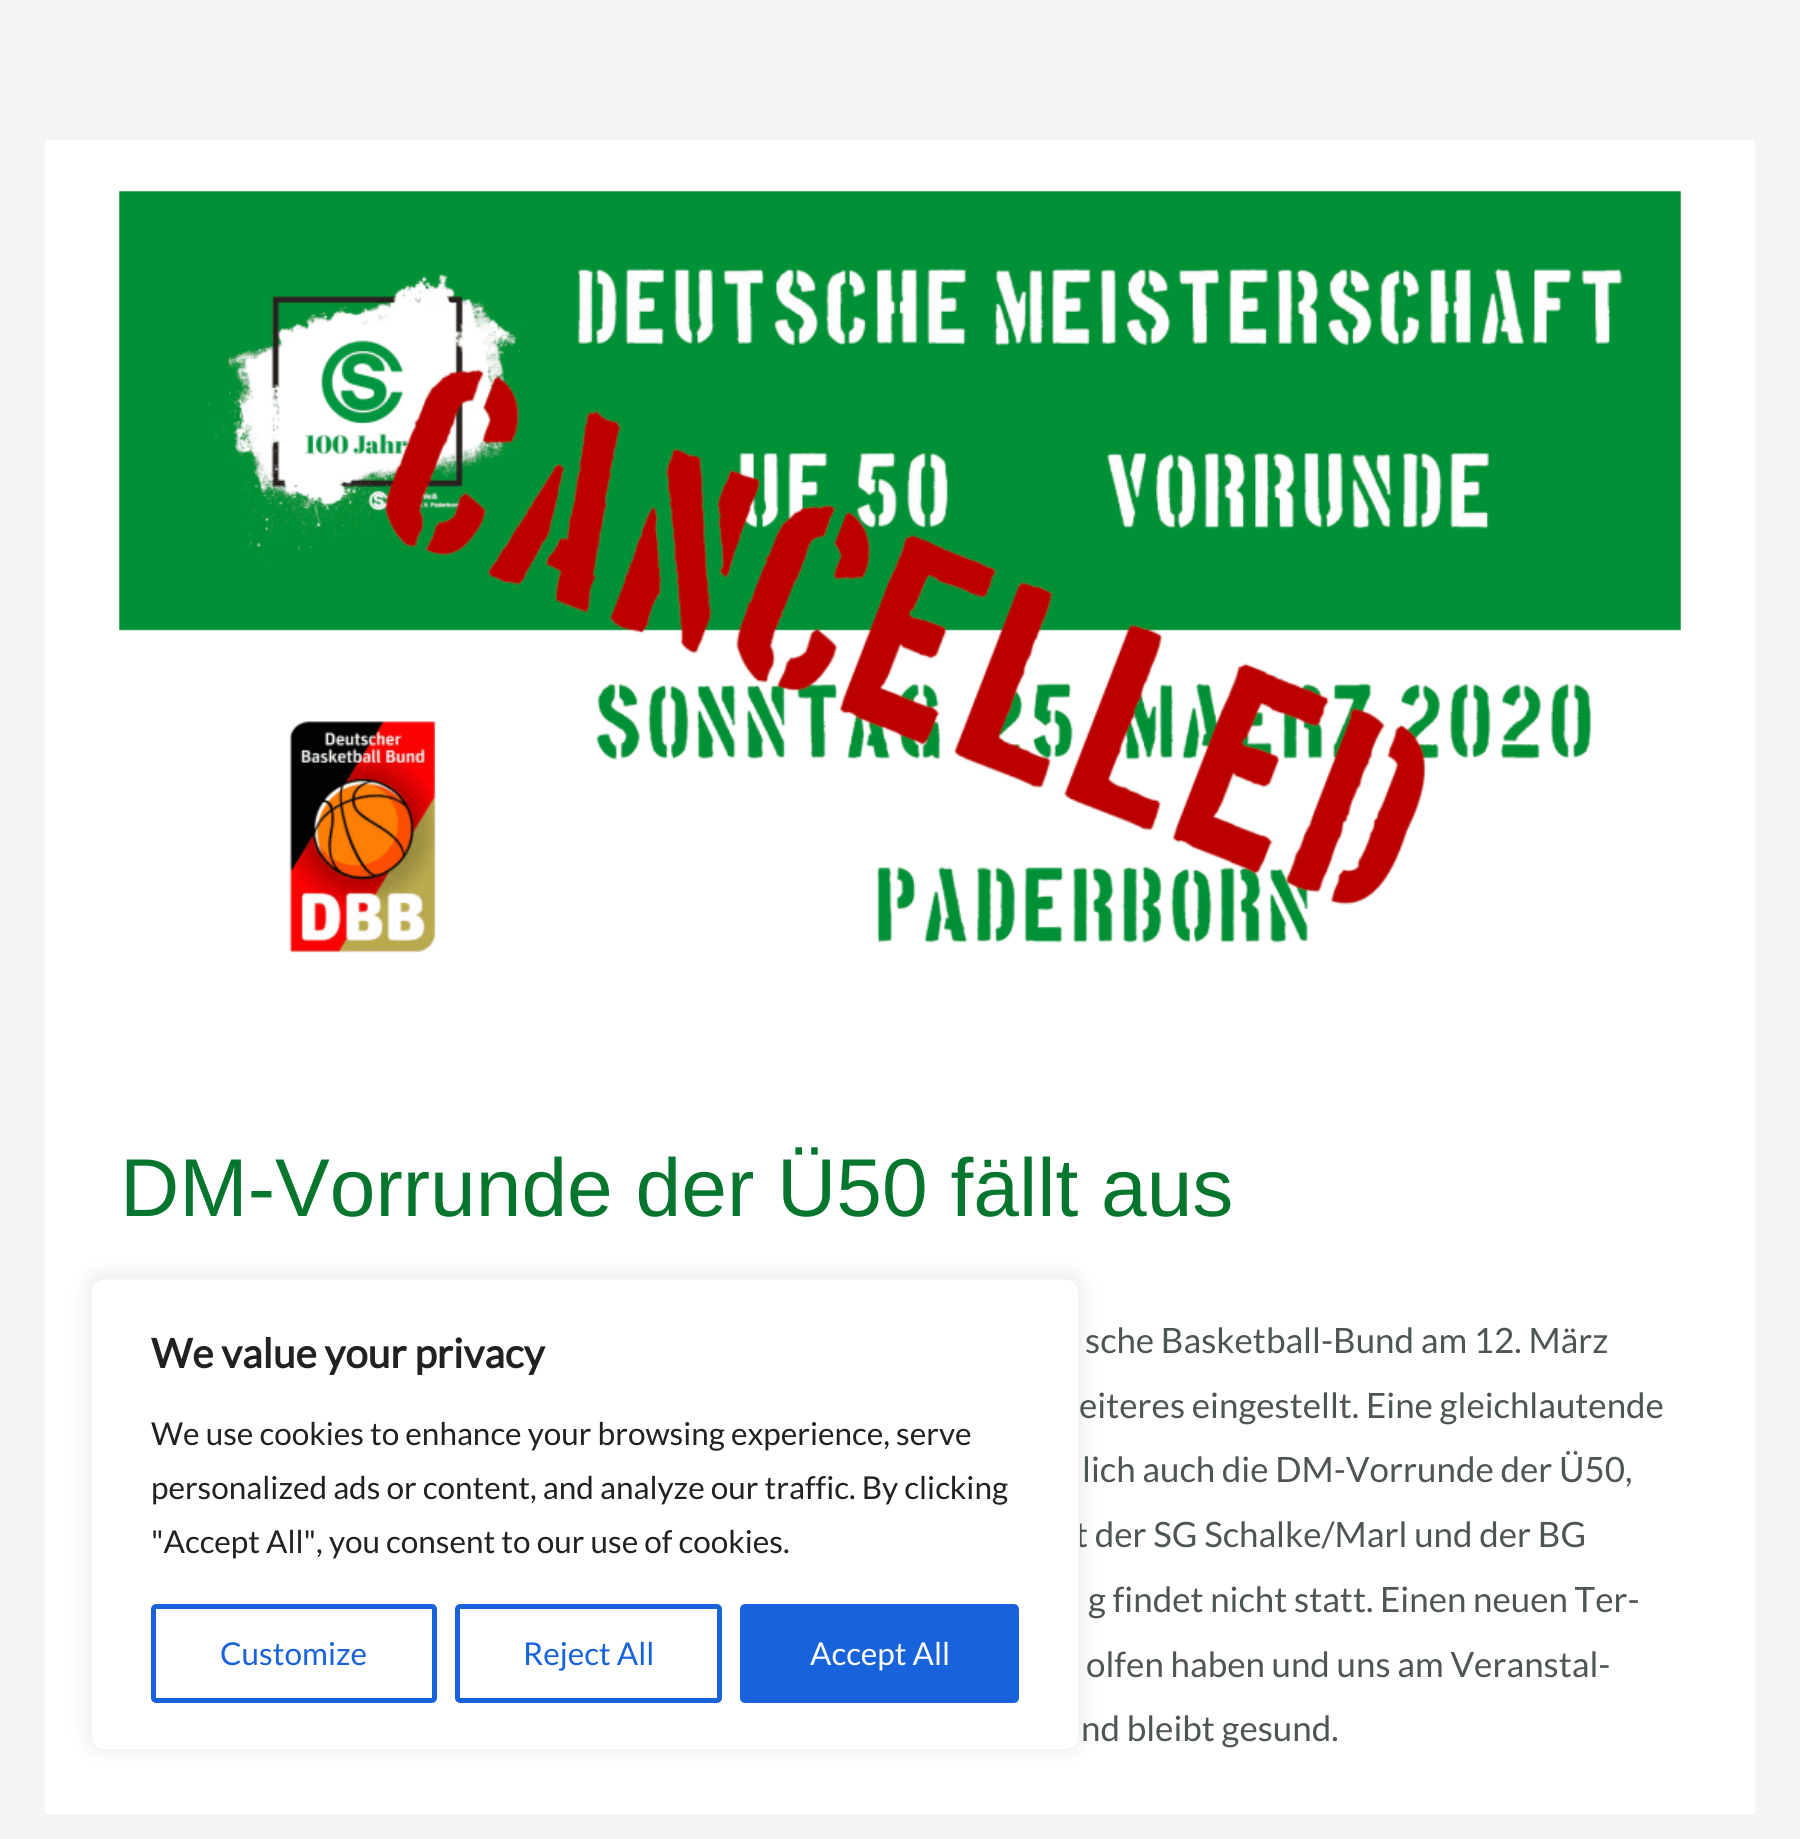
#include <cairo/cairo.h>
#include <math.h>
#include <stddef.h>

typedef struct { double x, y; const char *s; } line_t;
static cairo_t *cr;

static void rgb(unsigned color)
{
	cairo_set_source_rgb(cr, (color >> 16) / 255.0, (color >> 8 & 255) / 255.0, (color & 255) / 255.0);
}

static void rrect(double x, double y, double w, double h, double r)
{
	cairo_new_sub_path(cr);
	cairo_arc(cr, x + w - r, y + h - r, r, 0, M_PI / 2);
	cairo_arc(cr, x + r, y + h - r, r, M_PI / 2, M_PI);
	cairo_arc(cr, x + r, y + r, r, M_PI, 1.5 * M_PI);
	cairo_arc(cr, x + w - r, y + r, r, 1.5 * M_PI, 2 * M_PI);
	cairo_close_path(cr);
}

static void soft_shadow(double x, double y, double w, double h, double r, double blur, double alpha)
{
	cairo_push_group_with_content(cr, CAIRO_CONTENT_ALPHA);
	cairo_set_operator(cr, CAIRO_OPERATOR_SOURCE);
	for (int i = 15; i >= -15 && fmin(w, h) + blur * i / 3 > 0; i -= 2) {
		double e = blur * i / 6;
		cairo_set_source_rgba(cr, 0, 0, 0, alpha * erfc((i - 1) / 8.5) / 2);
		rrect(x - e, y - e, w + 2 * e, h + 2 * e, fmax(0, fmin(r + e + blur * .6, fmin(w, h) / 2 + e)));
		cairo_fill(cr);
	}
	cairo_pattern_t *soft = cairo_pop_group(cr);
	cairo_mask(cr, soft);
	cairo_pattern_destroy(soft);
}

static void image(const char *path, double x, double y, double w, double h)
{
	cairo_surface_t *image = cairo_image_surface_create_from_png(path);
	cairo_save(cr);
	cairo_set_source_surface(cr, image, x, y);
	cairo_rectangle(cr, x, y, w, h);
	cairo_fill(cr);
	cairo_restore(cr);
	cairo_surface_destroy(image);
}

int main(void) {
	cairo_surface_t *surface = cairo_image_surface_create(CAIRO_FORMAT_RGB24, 1800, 1839);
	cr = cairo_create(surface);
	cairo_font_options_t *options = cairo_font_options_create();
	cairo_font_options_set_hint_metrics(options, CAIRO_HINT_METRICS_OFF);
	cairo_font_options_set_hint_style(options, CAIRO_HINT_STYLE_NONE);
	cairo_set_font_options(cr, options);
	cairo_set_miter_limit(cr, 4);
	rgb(0xf4f6f4);
	cairo_paint(cr);
	rgb(0xffffff);
	cairo_rectangle(cr, 45, 140, 1710, 1674);
	cairo_fill(cr);
	image("img/1.png", 119, 191, 1562, 762);
	rgb(0xacabab);
	soft_shadow(90, 1276, 990, 472, 14, 11, 0.3);
	cairo_select_font_face(cr, "Liberation Sans", CAIRO_FONT_SLANT_NORMAL, CAIRO_FONT_WEIGHT_NORMAL);
	cairo_set_font_size(cr, 82.1);
	rgb(0x06752e);
	cairo_move_to(cr, 120, 1216);
	cairo_show_text(cr, "DM-Vorrunde der Ü50 fällt aus");
	cairo_select_font_face(cr, "Lato", CAIRO_FONT_SLANT_NORMAL, CAIRO_FONT_WEIGHT_NORMAL);
	cairo_set_font_size(cr, 34.9);
	rgb(0x4e5652);
	{
		static const line_t items[] = {
			{1085, 1353, "sche Basketball-Bund am 12. März"},
			{1079, 1418, "eiteres eingestellt. Eine gleichlautende"},
			{1082, 1482, "lich auch die DM-Vorrunde der Ü50,"},
			{1075, 1547, "t der SG Schalke/Marl und der BG"},
			{1088, 1612, "g findet nicht statt. Einen neuen Ter-"},
			{1086, 1677, "olfen haben und uns am Veranstal-"},
			{1081, 1741, "nd bleibt gesund."},
		};
		for (size_t i = 0; i < sizeof items / sizeof *items; i++) {
			cairo_move_to(cr, items[i].x, items[i].y);
			cairo_show_text(cr, items[i].s);
		}
	}
	rgb(0xffffff);
	rrect(91, 1279, 988, 471, 13);
	cairo_fill_preserve(cr);
	rgb(0xf4f4f4);
	cairo_stroke(cr);
	cairo_select_font_face(cr, "Lato", CAIRO_FONT_SLANT_NORMAL, CAIRO_FONT_WEIGHT_BOLD);
	cairo_set_font_size(cr, 40.5);
	rgb(0x212121);
	cairo_move_to(cr, 151, 1368);
	cairo_show_text(cr, "We value your privacy");
	cairo_select_font_face(cr, "Lato", CAIRO_FONT_SLANT_NORMAL, CAIRO_FONT_WEIGHT_NORMAL);
	cairo_set_font_size(cr, 31.5);
	{
		static const line_t items[] = {
			{151, 1445, "We use cookies to enhance your browsing experience, serve"},
			{151, 1499, "personalized ads or content, and analyze our traffic. By clicking"},
			{151, 1553, "\"Accept All\", you consent to our use of cookies."},
		};
		for (size_t i = 0; i < sizeof items / sizeof *items; i++) {
			cairo_move_to(cr, items[i].x, items[i].y);
			cairo_show_text(cr, items[i].s);
		}
	}
	rrect(153.5, 1606.5, 281, 94, 2.5);
	rgb(0x1863dc);
	cairo_set_line_width(cr, 5);
	cairo_stroke(cr);
	cairo_move_to(cr, 220, 1665);
	cairo_show_text(cr, "Customize");
	rrect(457.5, 1606.5, 262, 94, 2.5);
	cairo_stroke(cr);
	cairo_move_to(cr, 523, 1665);
	cairo_show_text(cr, "Reject All");
	rrect(742.5, 1606.5, 274, 94, 2.5);
	cairo_fill_preserve(cr);
	cairo_stroke(cr);
	rgb(0xffffff);
	cairo_move_to(cr, 810, 1665);
	cairo_show_text(cr, "Accept All");
	cairo_surface_write_to_png(surface, "page.png");
	cairo_font_options_destroy(options);
	cairo_destroy(cr);
	cairo_surface_destroy(surface);
	return 0;
}
